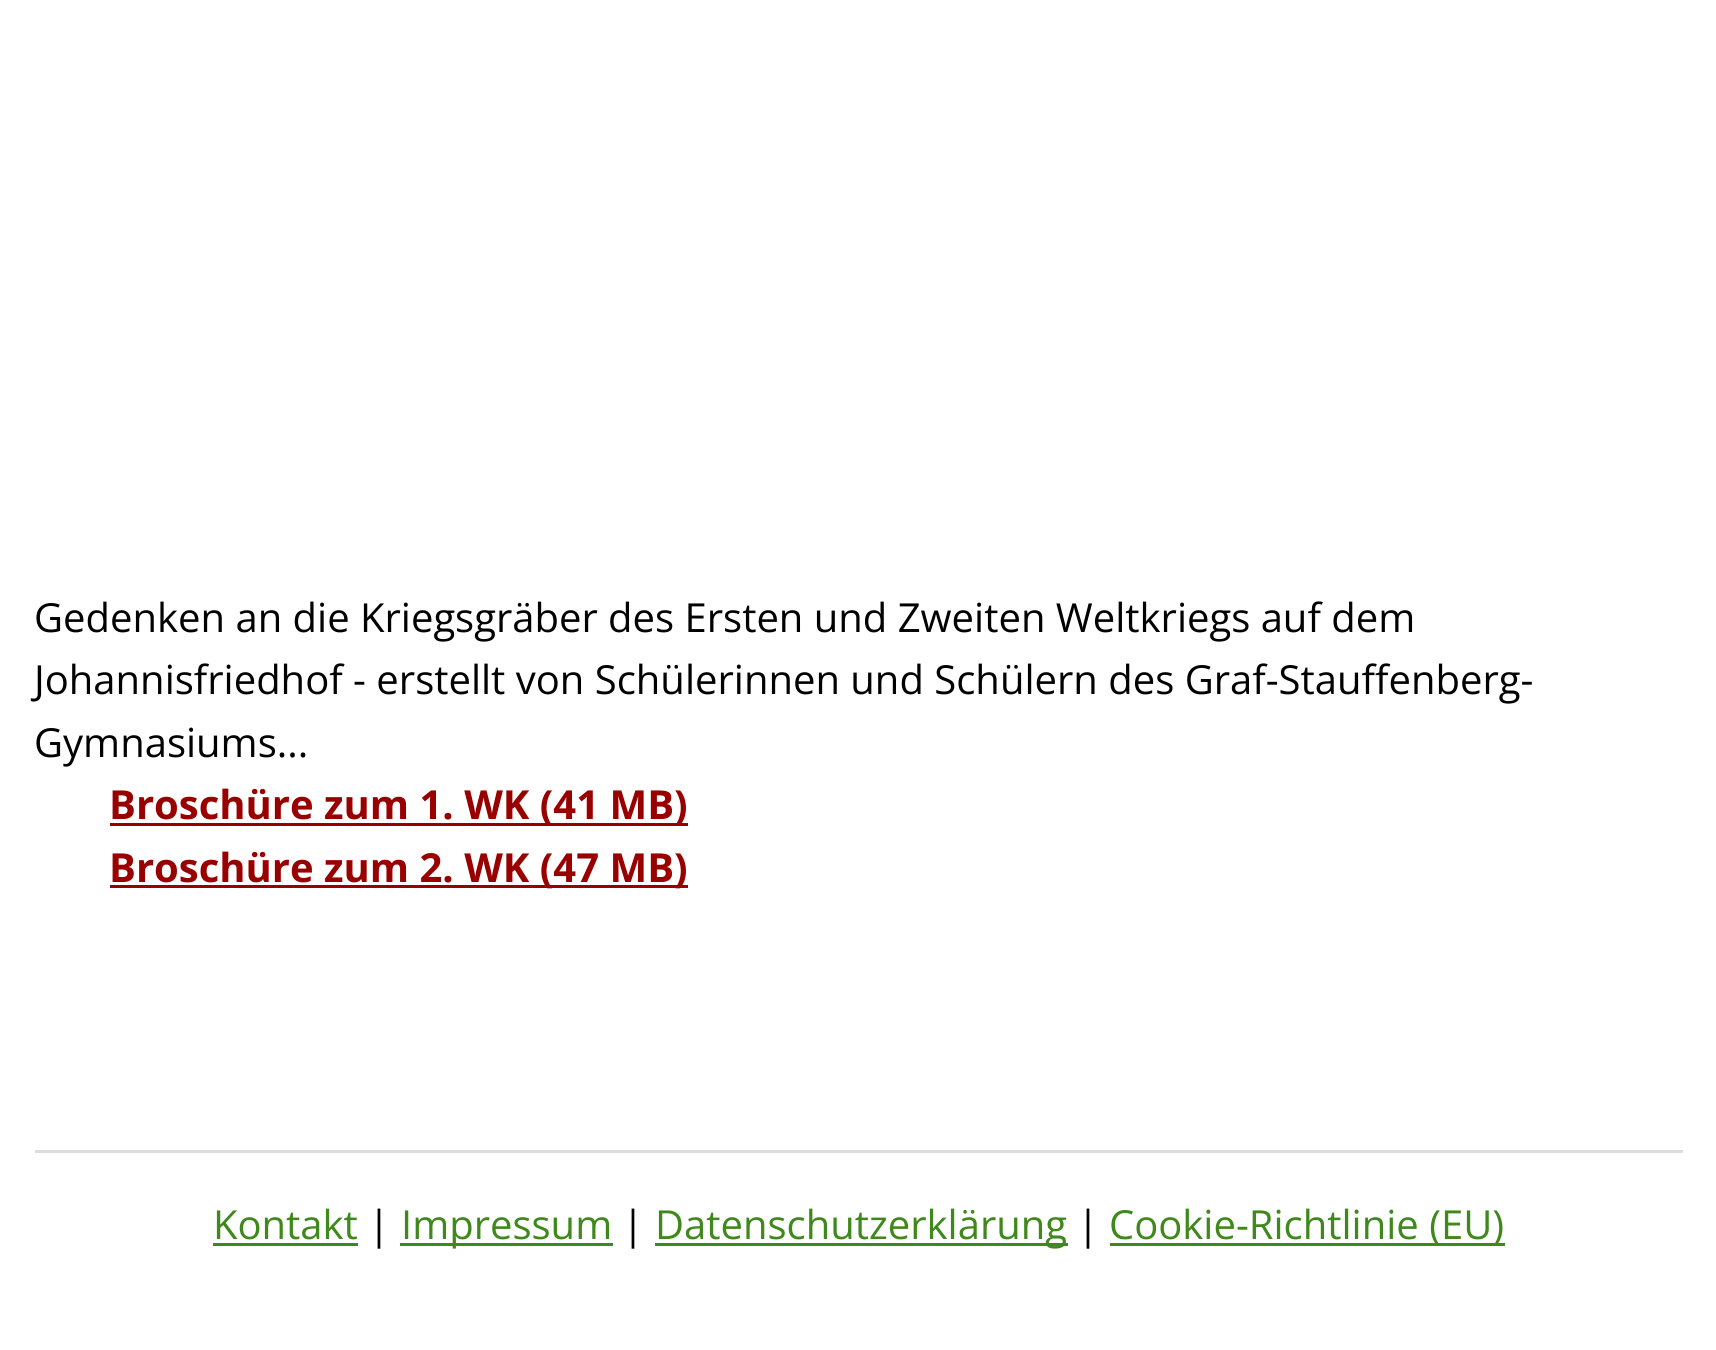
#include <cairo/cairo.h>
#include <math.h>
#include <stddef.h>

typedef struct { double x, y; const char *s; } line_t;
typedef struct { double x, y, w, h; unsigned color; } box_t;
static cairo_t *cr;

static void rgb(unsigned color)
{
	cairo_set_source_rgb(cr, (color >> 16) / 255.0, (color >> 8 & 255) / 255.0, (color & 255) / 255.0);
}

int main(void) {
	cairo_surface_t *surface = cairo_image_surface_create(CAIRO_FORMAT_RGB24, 1716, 1350);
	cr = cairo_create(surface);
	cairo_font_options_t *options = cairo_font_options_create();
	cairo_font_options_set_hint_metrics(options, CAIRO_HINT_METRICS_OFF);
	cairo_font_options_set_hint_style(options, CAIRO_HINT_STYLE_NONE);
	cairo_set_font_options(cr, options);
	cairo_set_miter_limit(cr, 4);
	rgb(0xffffff);
	cairo_paint(cr);
	{
		static const box_t items[] = {
			{110, 823, 578, 3, 0x990000},
			{110, 885, 578, 3, 0x990000},
			{35, 1150, 1648, 3, 0xdddddd},
			{213, 1243, 145, 3, 0x3f881b},
			{400, 1243, 213, 3, 0x3f881b},
			{655, 1243, 413, 3, 0x3f881b},
			{1110, 1243, 395, 3, 0x3f881b},
		};
		for (size_t i = 0; i < sizeof items / sizeof *items; i++) {
			rgb(items[i].color);
			cairo_rectangle(cr, items[i].x, items[i].y, items[i].w, items[i].h);
			cairo_fill(cr);
		}
	}
	cairo_select_font_face(cr, "Open Sans", CAIRO_FONT_SLANT_NORMAL, CAIRO_FONT_WEIGHT_NORMAL);
	cairo_set_font_size(cr, 40);
	rgb(0x000000);
	{
		static const line_t items[] = {
			{34, 632, "Gedenken an die Kriegsgräber des Ersten und Zweiten Weltkriegs auf dem"},
			{34, 694, "Johannisfriedhof - erstellt von Schülerinnen und Schülern des Graf-Stauffenberg-"},
			{34, 757, "Gymnasiums..."},
		};
		for (size_t i = 0; i < sizeof items / sizeof *items; i++) {
			cairo_move_to(cr, items[i].x, items[i].y);
			cairo_show_text(cr, items[i].s);
		}
	}
	cairo_select_font_face(cr, "Open Sans", CAIRO_FONT_SLANT_NORMAL, CAIRO_FONT_WEIGHT_BOLD);
	rgb(0x990000);
	cairo_move_to(cr, 109, 819);
	cairo_show_text(cr, "Broschüre zum 1. WK (41 MB)");
	cairo_move_to(cr, 109, 882);
	cairo_show_text(cr, "Broschüre zum 2. WK (47 MB)");
	cairo_select_font_face(cr, "Open Sans", CAIRO_FONT_SLANT_NORMAL, CAIRO_FONT_WEIGHT_NORMAL);
	rgb(0x3f881b);
	cairo_move_to(cr, 213, 1239);
	cairo_show_text(cr, "Kontakt");
	rgb(0x000000);
	cairo_move_to(cr, 368, 1239);
	cairo_show_text(cr, "|");
	rgb(0x3f881b);
	cairo_move_to(cr, 401, 1239);
	cairo_show_text(cr, "Impressum");
	rgb(0x000000);
	cairo_move_to(cr, 622, 1239);
	cairo_show_text(cr, "|");
	rgb(0x3f881b);
	cairo_move_to(cr, 655, 1239);
	cairo_show_text(cr, "Datenschutzerklärung");
	rgb(0x000000);
	cairo_move_to(cr, 1077, 1239);
	cairo_show_text(cr, "|");
	rgb(0x3f881b);
	cairo_move_to(cr, 1109, 1239);
	cairo_show_text(cr, "Cookie-Richtlinie (EU)");
	cairo_surface_write_to_png(surface, "page.png");
	cairo_font_options_destroy(options);
	cairo_destroy(cr);
	cairo_surface_destroy(surface);
	return 0;
}
